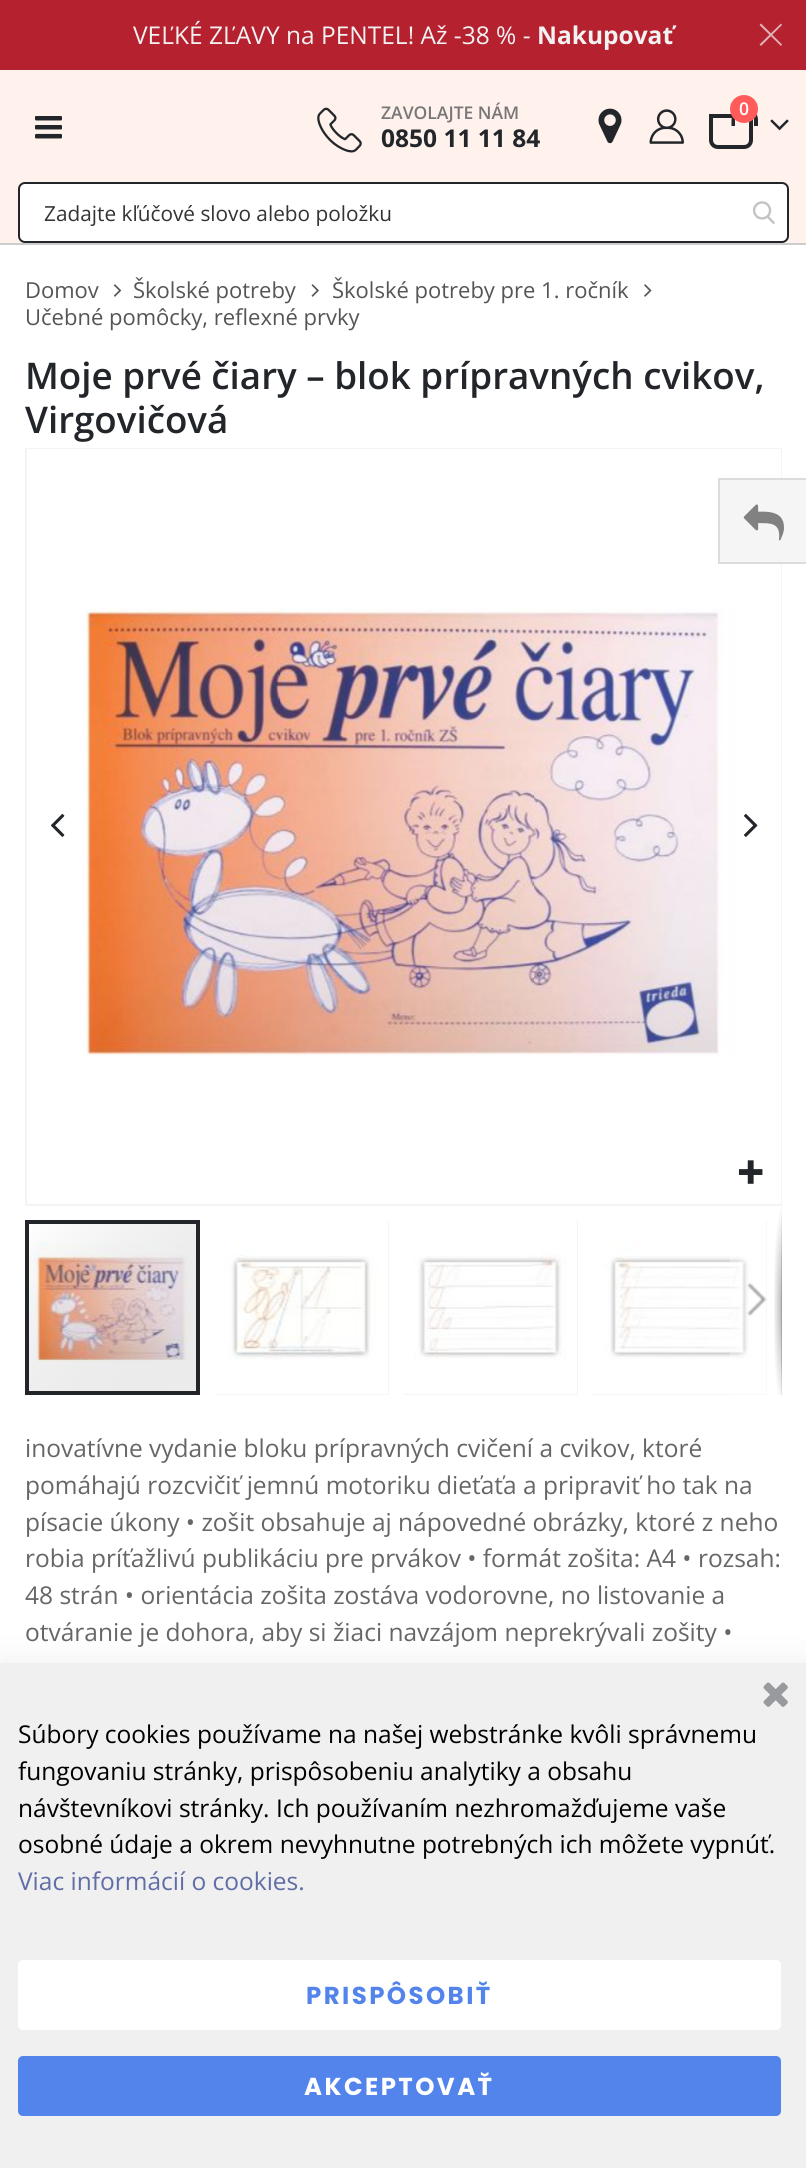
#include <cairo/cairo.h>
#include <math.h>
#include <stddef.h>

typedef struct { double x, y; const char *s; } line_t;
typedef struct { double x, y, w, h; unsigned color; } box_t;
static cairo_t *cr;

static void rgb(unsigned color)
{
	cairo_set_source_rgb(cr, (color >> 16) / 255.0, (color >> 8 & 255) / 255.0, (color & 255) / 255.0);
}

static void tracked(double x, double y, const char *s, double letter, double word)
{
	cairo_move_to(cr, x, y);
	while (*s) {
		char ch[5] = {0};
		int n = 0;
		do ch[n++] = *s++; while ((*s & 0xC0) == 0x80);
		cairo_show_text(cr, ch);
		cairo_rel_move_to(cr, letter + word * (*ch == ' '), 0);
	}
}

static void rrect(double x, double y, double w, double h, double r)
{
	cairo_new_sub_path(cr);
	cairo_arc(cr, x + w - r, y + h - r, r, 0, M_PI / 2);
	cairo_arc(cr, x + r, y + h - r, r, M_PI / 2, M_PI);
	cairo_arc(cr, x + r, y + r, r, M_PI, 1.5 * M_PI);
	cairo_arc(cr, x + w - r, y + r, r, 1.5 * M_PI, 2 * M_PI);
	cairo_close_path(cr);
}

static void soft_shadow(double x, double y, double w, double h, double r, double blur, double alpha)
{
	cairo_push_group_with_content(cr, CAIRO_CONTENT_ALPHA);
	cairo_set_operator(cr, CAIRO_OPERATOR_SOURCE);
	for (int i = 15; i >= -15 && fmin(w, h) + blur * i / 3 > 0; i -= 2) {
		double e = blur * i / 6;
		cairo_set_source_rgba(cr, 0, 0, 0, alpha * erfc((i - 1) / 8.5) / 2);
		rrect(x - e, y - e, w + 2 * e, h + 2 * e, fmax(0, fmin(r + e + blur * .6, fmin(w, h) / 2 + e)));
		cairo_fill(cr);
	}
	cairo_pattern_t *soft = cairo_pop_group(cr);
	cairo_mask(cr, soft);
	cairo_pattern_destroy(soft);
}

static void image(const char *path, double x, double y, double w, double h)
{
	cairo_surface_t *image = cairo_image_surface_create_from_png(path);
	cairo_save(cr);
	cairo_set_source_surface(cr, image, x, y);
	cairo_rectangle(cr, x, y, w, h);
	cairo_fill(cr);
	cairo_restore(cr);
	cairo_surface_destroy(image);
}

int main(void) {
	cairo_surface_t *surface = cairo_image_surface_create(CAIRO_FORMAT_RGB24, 806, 2168);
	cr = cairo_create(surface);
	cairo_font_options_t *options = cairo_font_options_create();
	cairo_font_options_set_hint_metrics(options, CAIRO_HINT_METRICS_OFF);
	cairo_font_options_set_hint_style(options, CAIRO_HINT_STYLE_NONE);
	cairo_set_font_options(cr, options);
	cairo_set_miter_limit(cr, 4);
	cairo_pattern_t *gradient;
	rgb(0xffffff);
	cairo_paint(cr);
	rgb(0xb5212f);
	cairo_rectangle(cr, 0, 0, 806, 70);
	cairo_fill(cr);
	rgb(0xe0b3b8);
	cairo_new_path(cr);
	cairo_move_to(cr, 761, 23.5);
	cairo_line_to(cr, 782, 44.5);
	cairo_line_to(cr, 781, 46);
	cairo_line_to(cr, 759.5, 25);
	cairo_close_path(cr);
	cairo_fill(cr);
	cairo_new_path(cr);
	cairo_move_to(cr, 781, 23.5);
	cairo_line_to(cr, 782, 25);
	cairo_line_to(cr, 761, 46);
	cairo_line_to(cr, 759.5, 44.5);
	cairo_close_path(cr);
	cairo_fill(cr);
	rgb(0xfff1eb);
	cairo_rectangle(cr, 0, 70, 806, 173);
	cairo_fill(cr);
	rgb(0xcccccc);
	cairo_rectangle(cr, 0, 243, 806, 2);
	cairo_fill(cr);
	image("img/1.png", 35, 116, 27, 23);
	image("img/2.png", 317, 107, 45, 46);
	image("img/3.png", 598, 108, 24, 36);
	image("img/4.png", 649, 109, 35, 35);
	cairo_new_path(cr);
	cairo_move_to(cr, 711, 116);
	cairo_line_to(cr, 751, 116);
	cairo_line_to(cr, 751, 140);
	cairo_curve_to(cr, 751, 144, 748, 147, 744, 147);
	cairo_line_to(cr, 718, 147);
	cairo_curve_to(cr, 714, 147, 711, 144, 711, 140);
	cairo_close_path(cr);
	rgb(0x222529);
	cairo_set_line_width(cr, 4);
	cairo_stroke(cr);
	cairo_set_fill_rule(cr, CAIRO_FILL_RULE_EVEN_ODD);
	cairo_new_path(cr);
	cairo_move_to(cr, 744.5, 107);
	cairo_curve_to(cr, 752, 107, 758, 112.5, 758, 120);
	cairo_line_to(cr, 758, 126);
	cairo_line_to(cr, 731.5, 126);
	cairo_line_to(cr, 731.5, 120);
	cairo_curve_to(cr, 731.5, 112.5, 737.5, 107, 744.5, 107);
	cairo_close_path(cr);
	cairo_move_to(cr, 744.5, 110);
	cairo_curve_to(cr, 750, 110, 754, 114.5, 754, 120);
	cairo_line_to(cr, 754, 126);
	cairo_line_to(cr, 735, 126);
	cairo_line_to(cr, 735, 120);
	cairo_curve_to(cr, 735, 114.5, 739.5, 110, 744.5, 110);
	cairo_close_path(cr);
	cairo_fill(cr);
	rgb(0xff5b5b);
	cairo_arc(cr, 744, 109, 14, 0, 2 * M_PI);
	cairo_fill(cr);
	image("img/5.png", 770, 119, 19, 12);
	rgb(0xffffff);
	rrect(19, 183, 769, 59, 6);
	cairo_fill_preserve(cr);
	rgb(0x222529);
	cairo_set_line_width(cr, 2);
	cairo_stroke(cr);
	image("img/6.png", 753, 201, 22, 23);
	image("img/7.png", 113, 284, 9, 13);
	image("img/8.png", 311, 284, 8, 13);
	image("img/9.png", 644, 284, 8, 13);
	cairo_rectangle(cr, 26, 449, 755, 756);
	rgb(0xf4f4f4);
	cairo_stroke(cr);
	image("img/10.png", 27, 449, 754, 755);
	image("img/11.png", 51, 813, 14, 24);
	image("img/12.png", 744, 813, 14, 24);
	image("img/13.png", 738, 1160, 25, 24);
	rgb(0xebebeb);
	cairo_rectangle(cr, 781, 1394, 1, 1);
	cairo_fill(cr);
	image("img/18.png", 781, 1220, 1, 175);
	gradient = cairo_pattern_create_radial(0, 0, 0, 0, 0, 1);
	cairo_pattern_set_matrix(gradient, &(cairo_matrix_t){1.0 / 9, 0, 0, 1.0 / 102, -1.0 * 782 / 9, -1.0 * 1307 / 102});
	cairo_pattern_add_color_stop_rgba(gradient, 0, 0, 0, 0, 0.4);
	cairo_pattern_add_color_stop_rgba(gradient, 1, 0, 0, 0, 0);
	cairo_set_source(cr, gradient);
	cairo_pattern_destroy(gradient);
	cairo_rectangle(cr, 774, 1206, 8, 189);
	cairo_fill(cr);
	gradient = cairo_pattern_create_linear(781, 1206, 781, 1409);
	cairo_pattern_add_color_stop_rgba(gradient, 0, 0, 0, 0, 0);
	cairo_pattern_add_color_stop_rgba(gradient, 0.25, 0, 0, 0, 0.2);
	cairo_pattern_add_color_stop_rgba(gradient, 0.75, 0, 0, 0, 0.3);
	cairo_pattern_add_color_stop_rgba(gradient, 1, 0, 0, 0, 0);
	cairo_set_source(cr, gradient);
	cairo_pattern_destroy(gradient);
	cairo_rectangle(cr, 781, 1206, 1, 189);
	cairo_fill(cr);
	rgb(0xebebeb);
	cairo_rectangle(cr, 592, 1220, 175, 175);
	cairo_fill(cr);
	image("img/17.png", 592, 1220, 175, 175);
	cairo_set_source_rgba(cr, 1, 1, 1, 0.3);
	cairo_rectangle(cr, 730, 1210, 52, 185);
	cairo_fill(cr);
	image("img/14.png", 747, 1282, 20, 34);
	image("img/19.png", 29, 1224, 167, 167);
	cairo_rectangle(cr, 27, 1222, 171, 171);
	rgb(0x222529);
	cairo_set_line_width(cr, 4);
	cairo_stroke(cr);
	rgb(0xebebeb);
	cairo_rectangle(cr, 214, 1220, 175, 175);
	cairo_fill(cr);
	image("img/15.png", 214, 1220, 175, 175);
	cairo_rectangle(cr, 403, 1220, 175, 175);
	cairo_fill(cr);
	image("img/16.png", 403, 1220, 175, 175);
	{
		static const box_t items[] = {
			{720, 480, 86, 82, 0xf5f5f5},
			{718, 478, 88, 2, 0xdcdcda},
			{718, 562, 88, 2, 0xdcdcda},
			{718, 478, 2, 86, 0xdcdcda},
		};
		for (size_t i = 0; i < sizeof items / sizeof *items; i++) {
			rgb(items[i].color);
			cairo_rectangle(cr, items[i].x, items[i].y, items[i].w, items[i].h);
			cairo_fill(cr);
		}
	}
	image("img/20.png", 743, 504, 41, 37);
	rgb(0x000000);
	soft_shadow(0, 1659, 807, 506, 0, 16, 0.06);
	rgb(0xf0f0f0);
	cairo_rectangle(cr, 0, 1663, 806, 505);
	cairo_fill(cr);
	image("img/21.png", 763, 1682, 25, 25);
	rgb(0xffffff);
	rrect(18, 1960, 763, 70, 5);
	cairo_fill(cr);
	rgb(0x5384ec);
	rrect(18, 2056, 763, 60, 5);
	cairo_fill(cr);
	cairo_select_font_face(cr, "Open Sans", CAIRO_FONT_SLANT_NORMAL, CAIRO_FONT_WEIGHT_NORMAL);
	cairo_set_font_size(cr, 24.5);
	rgb(0xf2f2f2);
	cairo_move_to(cr, 133, 44);
	cairo_show_text(cr, "VEĽKÉ ZĽAVY na PENTEL! Až -38 % -");
	cairo_select_font_face(cr, "Open Sans", CAIRO_FONT_SLANT_NORMAL, CAIRO_FONT_WEIGHT_BOLD);
	cairo_move_to(cr, 537, 44);
	cairo_show_text(cr, "Nakupovať");
	cairo_select_font_face(cr, "Open Sans SemiBold", CAIRO_FONT_SLANT_NORMAL, CAIRO_FONT_WEIGHT_NORMAL);
	cairo_set_font_size(cr, 17.5);
	rgb(0x777777);
	cairo_move_to(cr, 381, 119);
	cairo_show_text(cr, "ZAVOLAJTE NÁM");
	cairo_select_font_face(cr, "Open Sans", CAIRO_FONT_SLANT_NORMAL, CAIRO_FONT_WEIGHT_BOLD);
	cairo_set_font_size(cr, 24.5);
	rgb(0x222529);
	cairo_move_to(cr, 381, 147);
	cairo_show_text(cr, "0850 11 11 84");
	cairo_select_font_face(cr, "Open Sans SemiBold", CAIRO_FONT_SLANT_NORMAL, CAIRO_FONT_WEIGHT_NORMAL);
	cairo_set_font_size(cr, 17.5);
	rgb(0xffffff);
	cairo_move_to(cr, 739, 115);
	cairo_show_text(cr, "0");
	cairo_select_font_face(cr, "Open Sans", CAIRO_FONT_SLANT_NORMAL, CAIRO_FONT_WEIGHT_NORMAL);
	cairo_set_font_size(cr, 20.8);
	rgb(0x333333);
	cairo_move_to(cr, 44, 221);
	cairo_show_text(cr, "Zadajte kľúčové slovo alebo položku");
	cairo_set_font_size(cr, 22);
	rgb(0x555555);
	{
		static const line_t items[] = {
			{25, 298, "Domov"},
			{133, 298, "Školské potreby"},
			{332, 298, "Školské potreby pre 1. ročník"},
			{25, 325, "Učebné pomôcky, reflexné prvky"},
		};
		for (size_t i = 0; i < sizeof items / sizeof *items; i++) {
			cairo_move_to(cr, items[i].x, items[i].y);
			cairo_show_text(cr, items[i].s);
		}
	}
	cairo_select_font_face(cr, "Open Sans SemiBold", CAIRO_FONT_SLANT_NORMAL, CAIRO_FONT_WEIGHT_NORMAL);
	cairo_set_font_size(cr, 36.75);
	rgb(0x222529);
	cairo_move_to(cr, 25, 389);
	cairo_show_text(cr, "Moje prvé čiary – blok prípravných cvikov,");
	cairo_move_to(cr, 25, 433);
	cairo_show_text(cr, "Virgovičová");
	cairo_select_font_face(cr, "Open Sans", CAIRO_FONT_SLANT_NORMAL, CAIRO_FONT_WEIGHT_NORMAL);
	cairo_set_font_size(cr, 24.5);
	rgb(0x666666);
	{
		static const line_t items[] = {
			{25, 1457, "inovatívne vydanie bloku prípravných cvičení a cvikov, ktoré"},
			{25, 1494, "pomáhajú rozcvičiť jemnú motoriku dieťaťa a pripraviť ho tak na"},
			{25, 1531, "písacie úkony • zošit obsahuje aj nápovedné obrázky, ktoré z neho"},
			{25, 1567, "robia príťažlivú publikáciu pre prvákov • formát zošita: A4 • rozsah:"},
			{25, 1604, "48 strán • orientácia zošita zostáva vodorovne, no listovanie a"},
			{25, 1641, "otváranie je dohora, aby si žiaci navzájom neprekrývali zošity •"},
		};
		for (size_t i = 0; i < sizeof items / sizeof *items; i++) {
			cairo_move_to(cr, items[i].x, items[i].y);
			cairo_show_text(cr, items[i].s);
		}
	}
	rgb(0x000000);
	{
		static const line_t items[] = {
			{18, 1743, "Súbory cookies používame na našej webstránke kvôli správnemu"},
			{18, 1780, "fungovaniu stránky, prispôsobeniu analytiky a obsahu"},
			{18, 1817, "návštevníkovi stránky. Ich používaním nezhromažďujeme vaše"},
			{18, 1853, "osobné údaje a okrem nevyhnutne potrebných ich môžete vypnúť."},
		};
		for (size_t i = 0; i < sizeof items / sizeof *items; i++) {
			cairo_move_to(cr, items[i].x, items[i].y);
			cairo_show_text(cr, items[i].s);
		}
	}
	rgb(0x606da6);
	cairo_move_to(cr, 18, 1890);
	cairo_show_text(cr, "Viac informácií o cookies.");
	cairo_select_font_face(cr, "Poppins", CAIRO_FONT_SLANT_NORMAL, CAIRO_FONT_WEIGHT_BOLD);
	rgb(0x5384ec);
	tracked(306, 2004, "PRISPÔSOBIŤ", 2.4, 0);
	rgb(0xffffff);
	tracked(304, 2095, "AKCEPTOVAŤ", 2.4, 0);
	cairo_surface_write_to_png(surface, "page.png");
	cairo_font_options_destroy(options);
	cairo_destroy(cr);
	cairo_surface_destroy(surface);
	return 0;
}
